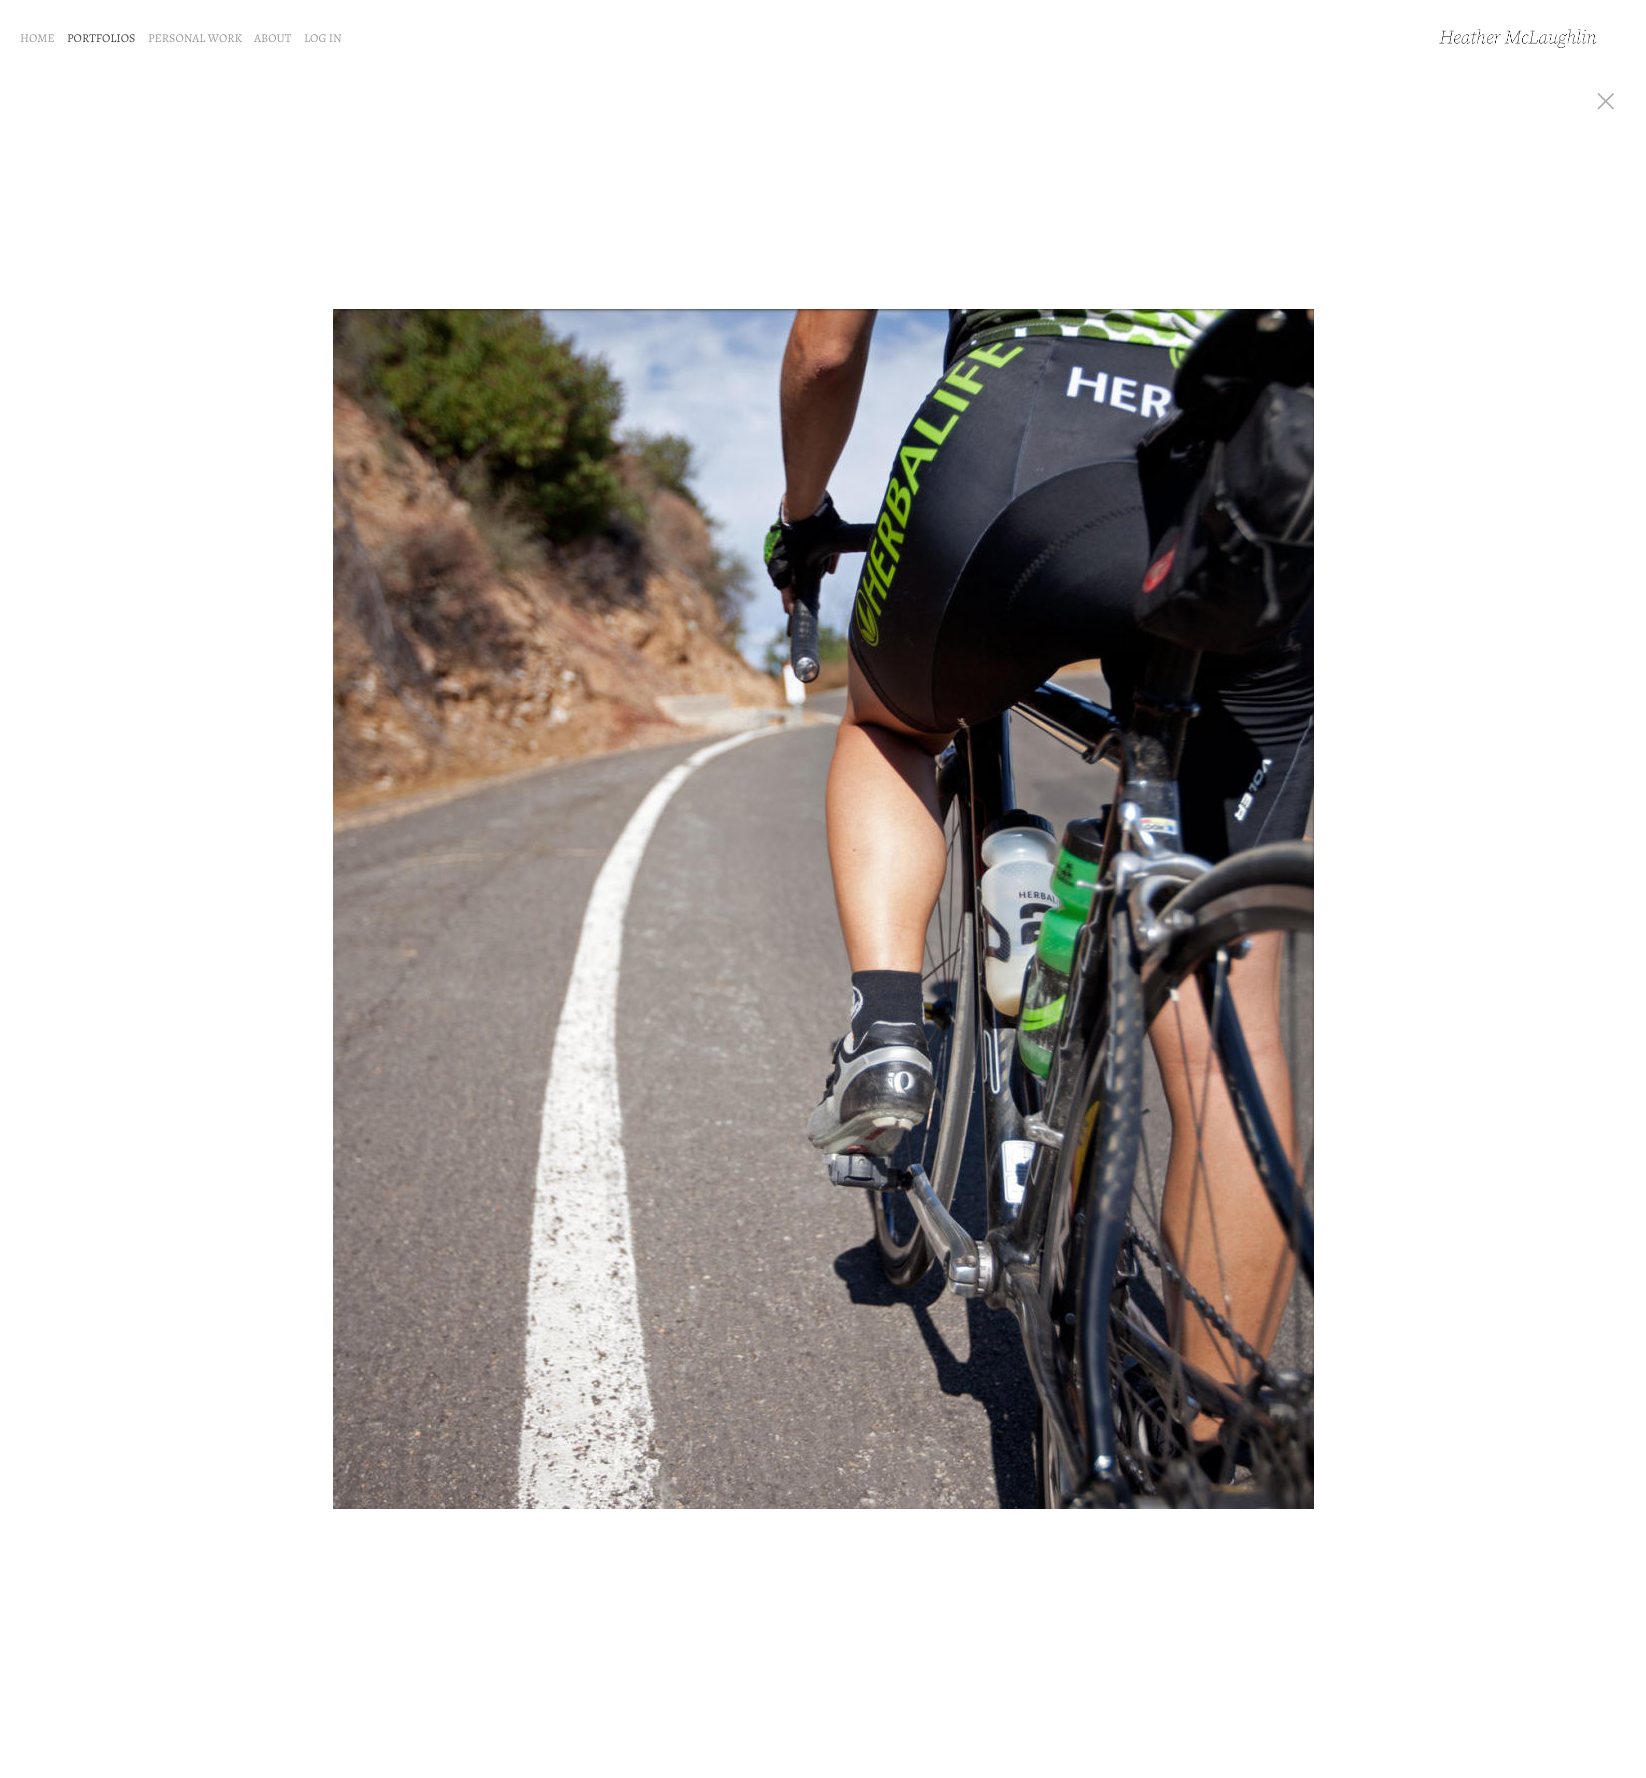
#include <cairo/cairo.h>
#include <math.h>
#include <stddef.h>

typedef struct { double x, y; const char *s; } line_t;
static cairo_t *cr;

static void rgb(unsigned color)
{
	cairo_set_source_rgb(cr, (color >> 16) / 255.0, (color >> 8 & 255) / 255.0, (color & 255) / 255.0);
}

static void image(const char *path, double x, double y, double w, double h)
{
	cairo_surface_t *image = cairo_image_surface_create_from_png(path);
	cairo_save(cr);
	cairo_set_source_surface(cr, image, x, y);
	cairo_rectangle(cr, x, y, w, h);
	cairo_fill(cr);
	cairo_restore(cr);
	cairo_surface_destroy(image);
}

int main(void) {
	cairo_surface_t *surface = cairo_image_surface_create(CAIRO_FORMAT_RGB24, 1646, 1778);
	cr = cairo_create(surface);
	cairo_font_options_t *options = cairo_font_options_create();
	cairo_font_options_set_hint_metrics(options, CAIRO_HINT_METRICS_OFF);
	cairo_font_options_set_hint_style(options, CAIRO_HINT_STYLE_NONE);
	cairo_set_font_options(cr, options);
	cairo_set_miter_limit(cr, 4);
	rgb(0xffffff);
	cairo_paint(cr);
	image("img/1.png", 1439, 29, 158, 19);
	image("img/2.png", 1597, 93, 17, 17);
	image("img/3.png", 333, 309, 981, 1200);
	cairo_select_font_face(cr, "Alegreya SC", CAIRO_FONT_SLANT_NORMAL, CAIRO_FONT_WEIGHT_NORMAL);
	cairo_set_font_size(cr, 12);
	rgb(0x999999);
	cairo_move_to(cr, 20, 42);
	cairo_show_text(cr, "HOME");
	rgb(0x444444);
	cairo_move_to(cr, 67, 42);
	cairo_show_text(cr, "PORTFOLIOS");
	rgb(0x999999);
	{
		static const line_t items[] = {
			{148, 42, "PERSONAL WORK"},
			{254, 42, "ABOUT"},
			{304, 42, "LOG IN"},
		};
		for (size_t i = 0; i < sizeof items / sizeof *items; i++) {
			cairo_move_to(cr, items[i].x, items[i].y);
			cairo_show_text(cr, items[i].s);
		}
	}
	cairo_surface_write_to_png(surface, "page.png");
	cairo_font_options_destroy(options);
	cairo_destroy(cr);
	cairo_surface_destroy(surface);
	return 0;
}
